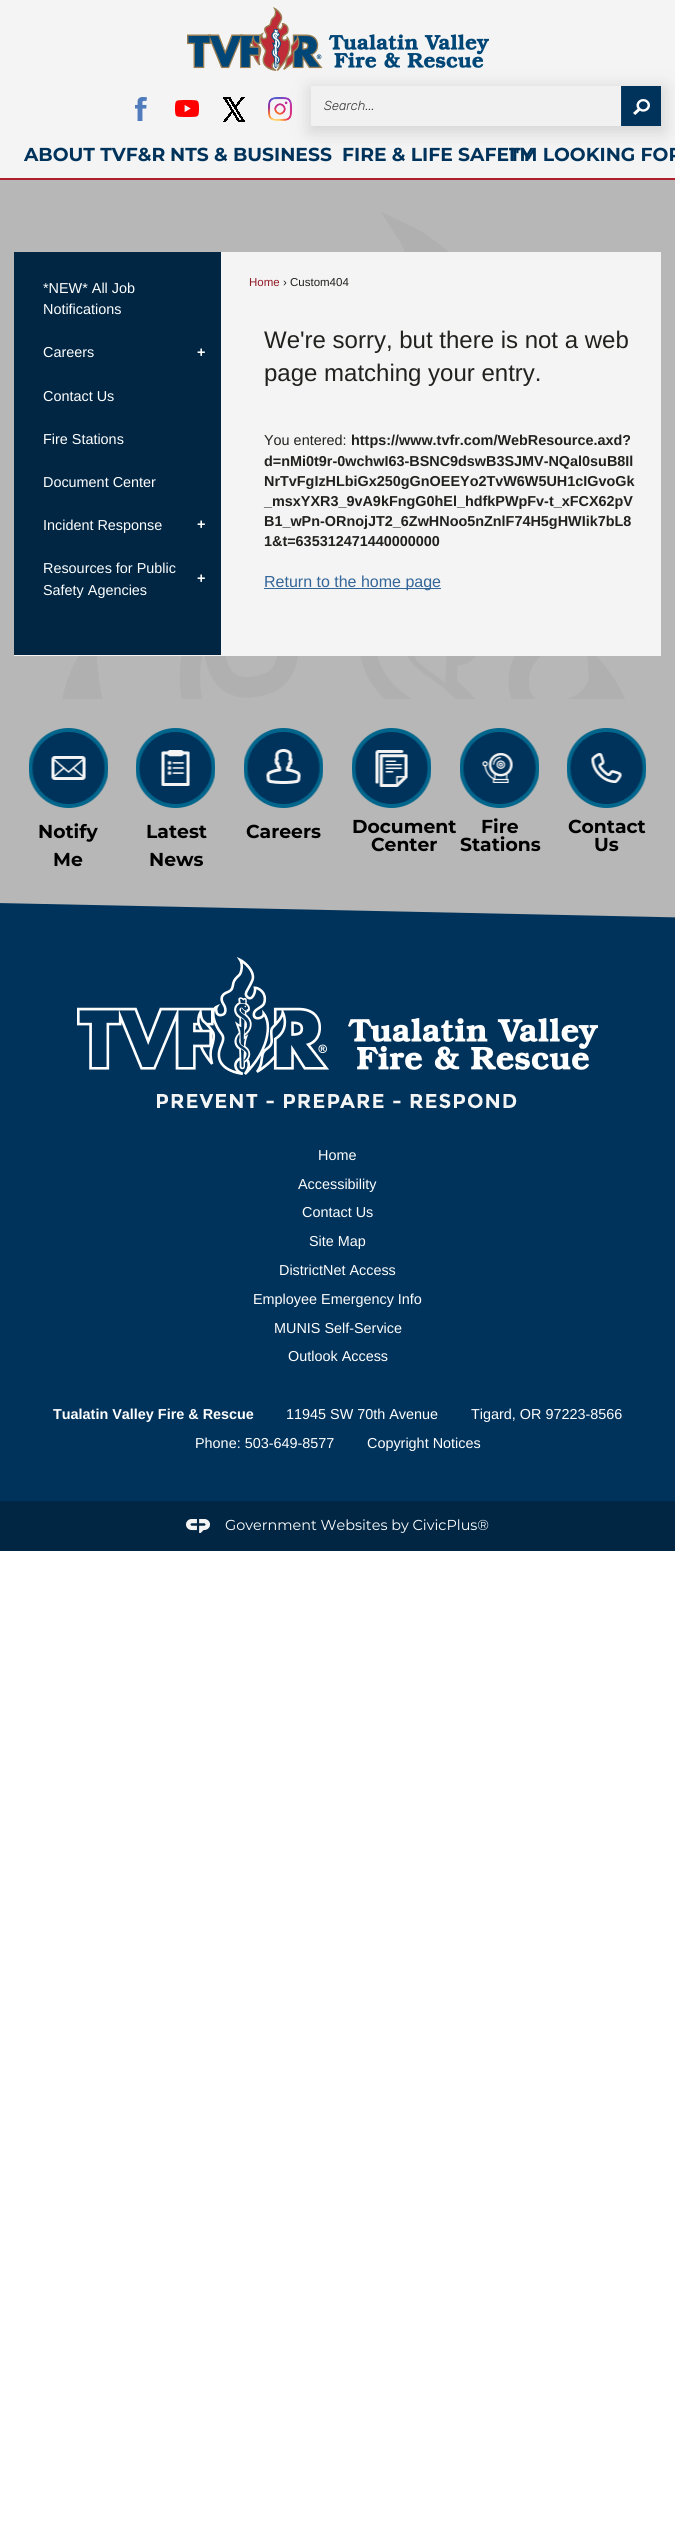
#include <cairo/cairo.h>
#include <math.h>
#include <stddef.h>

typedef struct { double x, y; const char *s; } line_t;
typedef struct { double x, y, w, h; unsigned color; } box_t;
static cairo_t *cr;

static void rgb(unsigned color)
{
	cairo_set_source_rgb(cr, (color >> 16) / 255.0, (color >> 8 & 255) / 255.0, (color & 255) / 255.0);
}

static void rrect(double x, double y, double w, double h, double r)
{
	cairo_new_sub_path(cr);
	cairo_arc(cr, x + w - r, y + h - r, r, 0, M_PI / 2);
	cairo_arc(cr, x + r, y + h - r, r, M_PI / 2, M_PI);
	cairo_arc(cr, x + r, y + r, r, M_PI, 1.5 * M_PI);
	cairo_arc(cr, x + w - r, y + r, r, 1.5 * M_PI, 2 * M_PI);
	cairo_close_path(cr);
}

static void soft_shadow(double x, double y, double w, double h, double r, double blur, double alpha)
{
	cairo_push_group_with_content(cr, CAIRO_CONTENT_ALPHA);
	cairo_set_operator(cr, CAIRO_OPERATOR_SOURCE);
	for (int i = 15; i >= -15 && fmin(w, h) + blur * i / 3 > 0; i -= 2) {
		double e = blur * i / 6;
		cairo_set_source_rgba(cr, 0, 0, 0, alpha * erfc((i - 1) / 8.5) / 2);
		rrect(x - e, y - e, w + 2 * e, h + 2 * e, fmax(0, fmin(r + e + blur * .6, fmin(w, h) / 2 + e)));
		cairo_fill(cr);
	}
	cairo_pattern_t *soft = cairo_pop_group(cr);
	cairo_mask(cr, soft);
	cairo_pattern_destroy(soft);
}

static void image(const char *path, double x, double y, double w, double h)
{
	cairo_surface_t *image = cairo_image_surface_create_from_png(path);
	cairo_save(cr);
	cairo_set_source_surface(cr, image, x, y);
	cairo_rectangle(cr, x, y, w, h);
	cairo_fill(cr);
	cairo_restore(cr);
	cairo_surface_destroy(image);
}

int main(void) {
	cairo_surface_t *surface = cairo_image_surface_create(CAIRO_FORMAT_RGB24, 675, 2521);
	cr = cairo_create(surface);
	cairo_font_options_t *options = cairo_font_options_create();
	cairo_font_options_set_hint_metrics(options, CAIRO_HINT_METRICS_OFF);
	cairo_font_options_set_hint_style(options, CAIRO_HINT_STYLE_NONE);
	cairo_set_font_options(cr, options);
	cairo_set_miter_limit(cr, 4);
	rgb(0xffffff);
	cairo_paint(cr);
	rgb(0xf5f4f4);
	cairo_rectangle(cr, 0, 0, 675, 178);
	cairo_fill(cr);
	rgb(0xaf1f2e);
	cairo_rectangle(cr, 0, 178, 675, 2);
	cairo_fill(cr);
	image("img/1.png", 187, 7, 302, 64);
	image("img/2.png", 135, 97, 12, 24);
	image("img/3.png", 175, 100, 24, 17);
	image("img/4.png", 223, 97, 22, 25);
	image("img/5.png", 268, 97, 24, 24);
	rgb(0xd3d3d3);
	soft_shadow(310, 88, 354, 44, 0, 9, 1);
	rgb(0xf1f1f1);
	cairo_rectangle(cr, 311, 86, 311, 40);
	cairo_fill(cr);
	image("img/6.png", 621, 86, 40, 40);
	rgb(0xb8b7b7);
	cairo_rectangle(cr, 0, 180, 675, 723);
	cairo_fill(cr);
	image("img/7.png", 62, 212, 563, 487);
	{
		static const box_t items[] = {
			{14, 252, 647, 404, 0xf5f4f4},
			{14, 252, 207, 403, 0x002644},
			{264, 588, 177, 1, 0x336699},
		};
		for (size_t i = 0; i < sizeof items / sizeof *items; i++) {
			rgb(items[i].color);
			cairo_rectangle(cr, items[i].x, items[i].y, items[i].w, items[i].h);
			cairo_fill(cr);
		}
	}
	image("img/8.png", 29, 728, 79, 80);
	image("img/9.png", 136, 728, 79, 80);
	image("img/10.png", 244, 728, 79, 80);
	image("img/11.png", 352, 728, 79, 80);
	image("img/12.png", 460, 728, 79, 80);
	image("img/13.png", 567, 728, 79, 80);
	rgb(0x00335b);
	cairo_rectangle(cr, 0, 903, 675, 598);
	cairo_fill(cr);
	cairo_save(cr);
	cairo_rectangle(cr, 0, 903, 675, 598);
	cairo_clip(cr);
	rgb(0xb8b7b7);
	cairo_new_path(cr);
	cairo_move_to(cr, 0, 753);
	cairo_line_to(cr, 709, 768);
	cairo_line_to(cr, 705, 918);
	cairo_line_to(cr, -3, 903);
	cairo_close_path(cr);
	cairo_fill(cr);
	cairo_restore(cr);
	image("img/14.png", 77, 957, 521, 152);
	rgb(0x002644);
	cairo_rectangle(cr, 0, 1501, 675, 50);
	cairo_fill(cr);
	image("img/15.png", 186, 1519, 24, 14);
	cairo_select_font_face(cr, "Rubik Light", CAIRO_FONT_SLANT_ITALIC, CAIRO_FONT_WEIGHT_NORMAL);
	cairo_set_font_size(cr, 13);
	rgb(0x333333);
	cairo_move_to(cr, 324, 110);
	cairo_show_text(cr, "Search...");
	cairo_select_font_face(cr, "Montserrat", CAIRO_FONT_SLANT_NORMAL, CAIRO_FONT_WEIGHT_BOLD);
	cairo_set_font_size(cr, 18.75);
	rgb(0x00335b);
	{
		static const line_t items[] = {
			{24, 161, "ABOUT TVF&R"},
			{170, 161, "NTS & BUSINESS"},
			{342, 161, "FIRE & LIFE SAFETY"},
			{509, 161, "I'M LOOKING FOR"},
		};
		for (size_t i = 0; i < sizeof items / sizeof *items; i++) {
			cairo_move_to(cr, items[i].x, items[i].y);
			cairo_show_text(cr, items[i].s);
		}
	}
	cairo_select_font_face(cr, "Liberation Sans", CAIRO_FONT_SLANT_NORMAL, CAIRO_FONT_WEIGHT_NORMAL);
	cairo_set_font_size(cr, 14.4);
	rgb(0xffffff);
	{
		static const line_t items[] = {
			{43, 293, "*NEW* All Job"},
			{43, 314, "Notifications"},
			{43, 357, "Careers"},
		};
		for (size_t i = 0; i < sizeof items / sizeof *items; i++) {
			cairo_move_to(cr, items[i].x, items[i].y);
			cairo_show_text(cr, items[i].s);
		}
	}
	cairo_select_font_face(cr, "Liberation Sans", CAIRO_FONT_SLANT_NORMAL, CAIRO_FONT_WEIGHT_BOLD);
	cairo_move_to(cr, 197, 357);
	cairo_show_text(cr, "+");
	cairo_select_font_face(cr, "Liberation Sans", CAIRO_FONT_SLANT_NORMAL, CAIRO_FONT_WEIGHT_NORMAL);
	{
		static const line_t items[] = {
			{43, 401, "Contact Us"},
			{43, 444, "Fire Stations"},
			{43, 487, "Document Center"},
			{43, 530, "Incident Response"},
		};
		for (size_t i = 0; i < sizeof items / sizeof *items; i++) {
			cairo_move_to(cr, items[i].x, items[i].y);
			cairo_show_text(cr, items[i].s);
		}
	}
	cairo_select_font_face(cr, "Liberation Sans", CAIRO_FONT_SLANT_NORMAL, CAIRO_FONT_WEIGHT_BOLD);
	cairo_move_to(cr, 197, 529);
	cairo_show_text(cr, "+");
	cairo_select_font_face(cr, "Liberation Sans", CAIRO_FONT_SLANT_NORMAL, CAIRO_FONT_WEIGHT_NORMAL);
	cairo_move_to(cr, 43, 573);
	cairo_show_text(cr, "Resources for Public");
	cairo_move_to(cr, 43, 595);
	cairo_show_text(cr, "Safety Agencies");
	cairo_select_font_face(cr, "Liberation Sans", CAIRO_FONT_SLANT_NORMAL, CAIRO_FONT_WEIGHT_BOLD);
	cairo_move_to(cr, 197, 583);
	cairo_show_text(cr, "+");
	cairo_select_font_face(cr, "Liberation Sans", CAIRO_FONT_SLANT_NORMAL, CAIRO_FONT_WEIGHT_NORMAL);
	cairo_set_font_size(cr, 11.5);
	rgb(0x8f1925);
	cairo_move_to(cr, 249, 286);
	cairo_show_text(cr, "Home");
	rgb(0x21211e);
	cairo_move_to(cr, 283, 286);
	cairo_show_text(cr, "›");
	cairo_move_to(cr, 290, 286);
	cairo_show_text(cr, "Custom404");
	cairo_set_font_size(cr, 24);
	cairo_move_to(cr, 264, 348);
	cairo_show_text(cr, "We're sorry, but there is not a web");
	cairo_move_to(cr, 264, 381);
	cairo_show_text(cr, "page matching your entry.");
	cairo_set_font_size(cr, 14.4);
	cairo_move_to(cr, 264, 445);
	cairo_show_text(cr, "You entered:");
	cairo_select_font_face(cr, "Liberation Sans", CAIRO_FONT_SLANT_NORMAL, CAIRO_FONT_WEIGHT_BOLD);
	{
		static const line_t items[] = {
			{351, 445, "https://www.tvfr.com/WebResource.axd?"},
			{264, 466, "d=nMi0t9r-0wchwI63-BSNC9dswB3SJMV-NQal0suB8Il"},
			{264, 486, "NrTvFgIzHLbiGx250gGnOEEYo2TvW6W5UH1cIGvoGk"},
			{264, 506, "_msxYXR3_9vA9kFngG0hEl_hdfkPWpFv-t_xFCX62pV"},
			{264, 526, "B1_wPn-ORnojJT2_6ZwHNoo5nZnlF74H5gHWIik7bL8"},
			{264, 546, "1&t=635312471440000000"},
		};
		for (size_t i = 0; i < sizeof items / sizeof *items; i++) {
			cairo_move_to(cr, items[i].x, items[i].y);
			cairo_show_text(cr, items[i].s);
		}
	}
	cairo_select_font_face(cr, "Liberation Sans", CAIRO_FONT_SLANT_NORMAL, CAIRO_FONT_WEIGHT_NORMAL);
	cairo_set_font_size(cr, 16);
	rgb(0x336699);
	cairo_move_to(cr, 264, 587);
	cairo_show_text(cr, "Return to the home page");
	cairo_select_font_face(cr, "Montserrat", CAIRO_FONT_SLANT_NORMAL, CAIRO_FONT_WEIGHT_BOLD);
	cairo_set_font_size(cr, 18.75);
	rgb(0x000000);
	{
		static const line_t items[] = {
			{38, 838, "Notify"},
			{53, 866, "Me"},
			{146, 838, "Latest"},
			{149, 866, "News"},
			{246, 838, "Careers"},
			{352, 833, "Document"},
			{371, 851, "Center"},
			{481, 833, "Fire"},
			{460, 851, "Stations"},
			{568, 833, "Contact"},
			{594, 851, "Us"},
		};
		for (size_t i = 0; i < sizeof items / sizeof *items; i++) {
			cairo_move_to(cr, items[i].x, items[i].y);
			cairo_show_text(cr, items[i].s);
		}
	}
	cairo_select_font_face(cr, "Liberation Sans", CAIRO_FONT_SLANT_NORMAL, CAIRO_FONT_WEIGHT_NORMAL);
	cairo_set_font_size(cr, 14.4);
	rgb(0xffffff);
	{
		static const line_t items[] = {
			{318, 1160, "Home"},
			{298, 1189, "Accessibility"},
			{302, 1217, "Contact Us"},
			{309, 1246, "Site Map"},
			{279, 1275, "DistrictNet Access"},
			{253, 1304, "Employee Emergency Info"},
			{274, 1333, "MUNIS Self-Service"},
			{288, 1361, "Outlook Access"},
		};
		for (size_t i = 0; i < sizeof items / sizeof *items; i++) {
			cairo_move_to(cr, items[i].x, items[i].y);
			cairo_show_text(cr, items[i].s);
		}
	}
	cairo_select_font_face(cr, "Liberation Sans", CAIRO_FONT_SLANT_NORMAL, CAIRO_FONT_WEIGHT_BOLD);
	cairo_move_to(cr, 53, 1419);
	cairo_show_text(cr, "Tualatin Valley Fire & Rescue");
	cairo_select_font_face(cr, "Liberation Sans", CAIRO_FONT_SLANT_NORMAL, CAIRO_FONT_WEIGHT_NORMAL);
	{
		static const line_t items[] = {
			{286, 1419, "11945 SW 70th Avenue"},
			{471, 1419, "Tigard, OR 97223-8566"},
			{195, 1448, "Phone: 503-649-8577"},
			{367, 1448, "Copyright Notices"},
		};
		for (size_t i = 0; i < sizeof items / sizeof *items; i++) {
			cairo_move_to(cr, items[i].x, items[i].y);
			cairo_show_text(cr, items[i].s);
		}
	}
	cairo_select_font_face(cr, "Montserrat", CAIRO_FONT_SLANT_NORMAL, CAIRO_FONT_WEIGHT_NORMAL);
	cairo_move_to(cr, 225, 1530);
	cairo_show_text(cr, "Government Websites by CivicPlus®");
	cairo_surface_write_to_png(surface, "page.png");
	cairo_font_options_destroy(options);
	cairo_destroy(cr);
	cairo_surface_destroy(surface);
	return 0;
}
